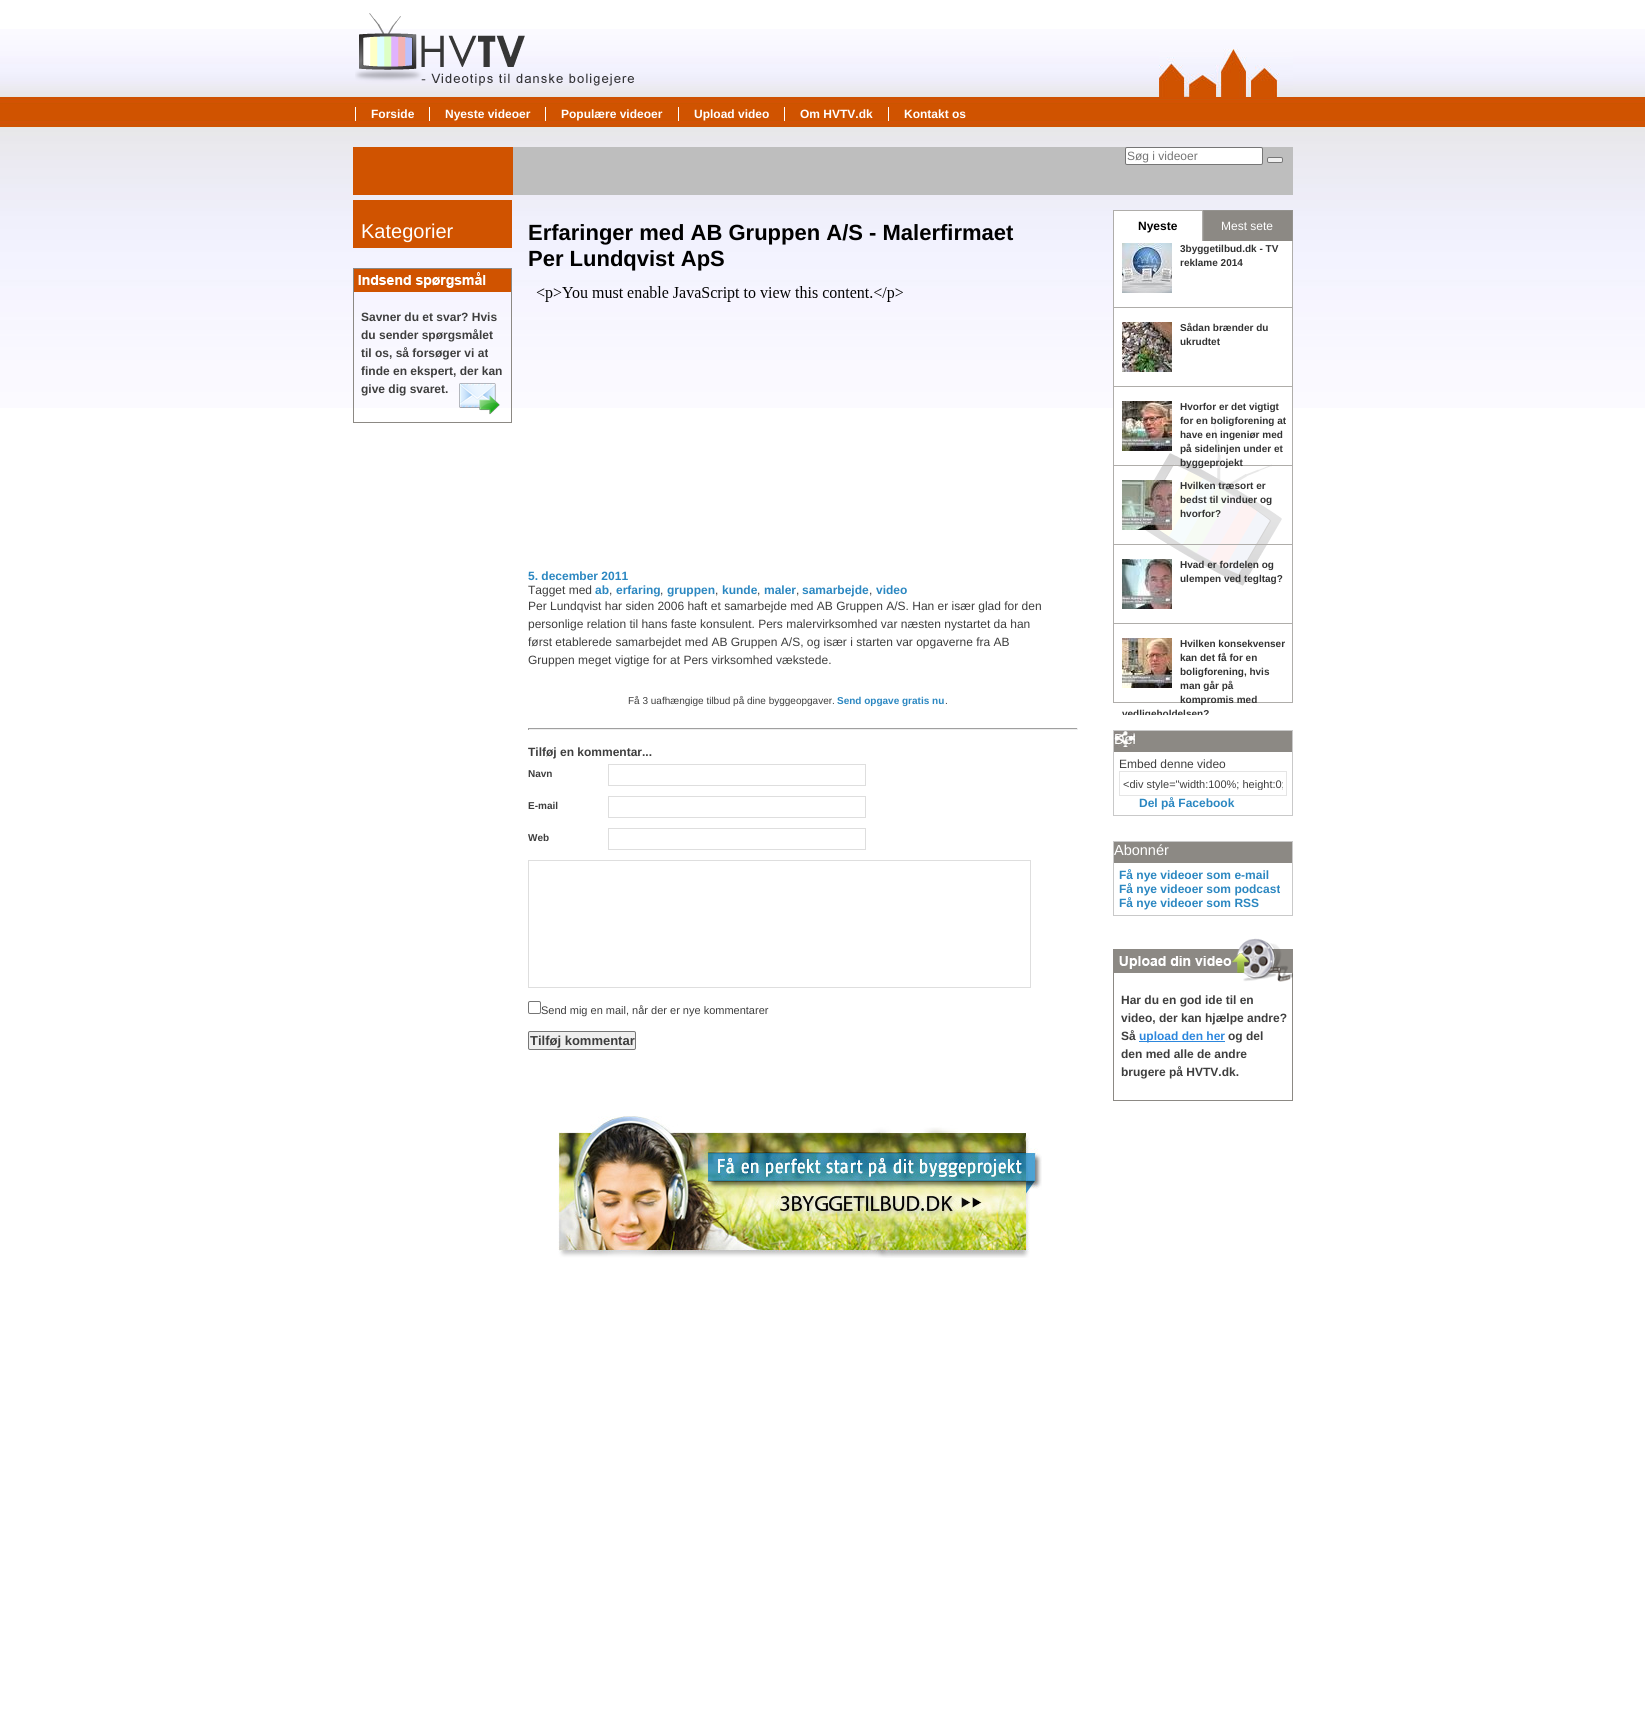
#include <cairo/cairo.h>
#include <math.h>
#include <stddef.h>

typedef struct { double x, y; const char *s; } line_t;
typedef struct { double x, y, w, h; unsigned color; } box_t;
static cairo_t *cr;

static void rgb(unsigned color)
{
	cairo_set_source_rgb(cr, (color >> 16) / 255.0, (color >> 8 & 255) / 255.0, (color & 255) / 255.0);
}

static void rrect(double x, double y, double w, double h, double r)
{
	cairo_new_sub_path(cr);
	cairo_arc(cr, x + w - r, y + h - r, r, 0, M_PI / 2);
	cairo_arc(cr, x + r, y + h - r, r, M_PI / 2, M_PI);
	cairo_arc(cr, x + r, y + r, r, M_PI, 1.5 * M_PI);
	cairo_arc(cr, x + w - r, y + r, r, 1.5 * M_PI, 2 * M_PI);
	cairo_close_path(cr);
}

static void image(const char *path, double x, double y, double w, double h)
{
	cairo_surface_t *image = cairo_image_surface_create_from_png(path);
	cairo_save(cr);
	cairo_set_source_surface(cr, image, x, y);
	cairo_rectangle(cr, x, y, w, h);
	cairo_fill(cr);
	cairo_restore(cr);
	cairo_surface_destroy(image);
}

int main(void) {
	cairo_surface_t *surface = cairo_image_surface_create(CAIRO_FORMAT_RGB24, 1645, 1711);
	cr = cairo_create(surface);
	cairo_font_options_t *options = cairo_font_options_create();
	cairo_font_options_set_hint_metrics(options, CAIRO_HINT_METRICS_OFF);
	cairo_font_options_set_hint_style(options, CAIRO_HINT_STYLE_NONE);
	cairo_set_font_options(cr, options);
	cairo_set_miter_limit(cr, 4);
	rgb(0xffffff);
	cairo_paint(cr);
	image("img/1.png", 0, 29, 1645, 379);
	image("img/2.png", 355, 13, 279, 73);
	image("img/3.png", 1159, 49, 134, 48);
	{
		static const box_t items[] = {
			{355, 107, 1, 14, 0xffffff},
			{429, 107, 1, 14, 0xffffff},
			{545, 107, 1, 14, 0xffffff},
			{678, 107, 1, 14, 0xffffff},
			{784, 107, 1, 14, 0xffffff},
			{888, 107, 1, 14, 0xffffff},
			{513, 147, 780, 48, 0xbebebe},
			{353, 147, 160, 48, 0xd05300},
		};
		for (size_t i = 0; i < sizeof items / sizeof *items; i++) {
			rgb(items[i].color);
			cairo_rectangle(cr, items[i].x, items[i].y, items[i].w, items[i].h);
			cairo_fill(cr);
		}
	}
	rgb(0xffffff);
	rrect(1125.5, 147.5, 137, 17, 1.5);
	cairo_fill_preserve(cr);
	rgb(0x767676);
	cairo_set_line_width(cr, 1);
	cairo_stroke(cr);
	rgb(0xefefef);
	rrect(1267.5, 157.5, 15, 5, 1.5);
	cairo_fill_preserve(cr);
	rgb(0x767676);
	cairo_stroke(cr);
	rgb(0xd05300);
	cairo_rectangle(cr, 353, 200, 159, 48);
	cairo_fill(cr);
	image("img/4.png", 353, 268, 159, 155);
	image("img/5.png", 536, 286, 367, 16);
	{
		static const box_t items[] = {
			{528, 728, 550, 1, 0x9f9f9f},
			{1077, 728, 1, 2, 0xeeeeee},
			{528, 729, 550, 1, 0xeeeeee},
			{528, 728, 1, 2, 0x9f9f9f},
		};
		for (size_t i = 0; i < sizeof items / sizeof *items; i++) {
			rgb(items[i].color);
			cairo_rectangle(cr, items[i].x, items[i].y, items[i].w, items[i].h);
			cairo_fill(cr);
		}
	}
	cairo_rectangle(cr, 608.5, 764.5, 257, 21);
	rgb(0xdedede);
	cairo_stroke(cr);
	cairo_rectangle(cr, 608.5, 796.5, 257, 21);
	cairo_stroke(cr);
	cairo_rectangle(cr, 608.5, 828.5, 257, 21);
	cairo_stroke(cr);
	cairo_rectangle(cr, 528.5, 860.5, 502, 127);
	cairo_stroke(cr);
	rrect(528.5, 1001.5, 12, 12, 1.5);
	rgb(0x767676);
	cairo_stroke(cr);
	rgb(0xefefef);
	rrect(528.5, 1031.5, 107, 18, 1.5);
	cairo_fill_preserve(cr);
	rgb(0x767676);
	cairo_stroke(cr);
	{
		static const box_t items[] = {
			{1114, 211, 88, 30, 0xffffff},
			{1113, 210, 90, 1, 0xafadaa},
			{1202, 210, 1, 31, 0xafadaa},
			{1113, 210, 1, 31, 0xafadaa},
			{1204, 211, 88, 30, 0x8c8984},
			{1203, 210, 90, 1, 0x94928e},
			{1292, 210, 1, 31, 0x94928e},
			{1203, 210, 1, 31, 0x94928e},
			{1113, 241, 180, 167, 0xffffff},
		};
		for (size_t i = 0; i < sizeof items / sizeof *items; i++) {
			rgb(items[i].color);
			cairo_rectangle(cr, items[i].x, items[i].y, items[i].w, items[i].h);
			cairo_fill(cr);
		}
	}
	image("img/6.png", 1145, 423, 137, 163);
	{
		static const box_t items[] = {
			{1292, 241, 1, 462, 0xafadaa},
			{1113, 307, 180, 1, 0xafadaa},
			{1113, 241, 1, 67, 0xafadaa},
		};
		for (size_t i = 0; i < sizeof items / sizeof *items; i++) {
			rgb(items[i].color);
			cairo_rectangle(cr, items[i].x, items[i].y, items[i].w, items[i].h);
			cairo_fill(cr);
		}
	}
	image("img/7.png", 1122, 243, 50, 50);
	cairo_rectangle(cr, 1113, 386, 180, 1);
	cairo_fill(cr);
	cairo_rectangle(cr, 1113, 308, 1, 79);
	cairo_fill(cr);
	image("img/8.png", 1122, 322, 50, 50);
	cairo_rectangle(cr, 1113, 465, 180, 1);
	cairo_fill(cr);
	cairo_rectangle(cr, 1113, 387, 1, 79);
	cairo_fill(cr);
	image("img/9.png", 1122, 401, 50, 50);
	cairo_rectangle(cr, 1113, 544, 180, 1);
	cairo_fill(cr);
	cairo_rectangle(cr, 1113, 466, 1, 79);
	cairo_fill(cr);
	image("img/10.png", 1122, 480, 50, 50);
	cairo_rectangle(cr, 1113, 623, 180, 1);
	cairo_fill(cr);
	cairo_rectangle(cr, 1113, 545, 1, 79);
	cairo_fill(cr);
	image("img/11.png", 1122, 559, 50, 50);
	cairo_rectangle(cr, 1113, 702, 180, 1);
	cairo_fill(cr);
	cairo_rectangle(cr, 1113, 624, 1, 79);
	cairo_fill(cr);
	image("img/12.png", 1122, 638, 50, 50);
	cairo_rectangle(cr, 1113.5, 730.5, 179, 85);
	rgb(0xc9c9c9);
	cairo_stroke(cr);
	rgb(0x8c8984);
	cairo_rectangle(cr, 1114, 731, 178, 21);
	cairo_fill(cr);
	image("img/13.png", 1114, 731, 21, 16);
	cairo_rectangle(cr, 1119.5, 771.5, 167, 24);
	rgb(0xe5e5e5);
	cairo_stroke(cr);
	cairo_rectangle(cr, 1113.5, 841.5, 179, 74);
	rgb(0xc9c9c9);
	cairo_stroke(cr);
	rgb(0x8c8984);
	cairo_rectangle(cr, 1114, 842, 178, 21);
	cairo_fill(cr);
	image("img/14.png", 1113, 938, 180, 163);
	rgb(0x2d87dd);
	cairo_rectangle(cr, 1139, 1041, 86, 1);
	cairo_fill(cr);
	image("img/15.png", 558, 1116, 484, 142);
	cairo_select_font_face(cr, "Liberation Sans", CAIRO_FONT_SLANT_NORMAL, CAIRO_FONT_WEIGHT_BOLD);
	cairo_set_font_size(cr, 12);
	rgb(0xffffff);
	{
		static const line_t items[] = {
			{371, 118, "Forside"},
			{445, 118, "Nyeste videoer"},
			{561, 118, "Populære videoer"},
			{694, 118, "Upload video"},
			{800, 118, "Om HVTV.dk"},
			{904, 118, "Kontakt os"},
		};
		for (size_t i = 0; i < sizeof items / sizeof *items; i++) {
			cairo_move_to(cr, items[i].x, items[i].y);
			cairo_show_text(cr, items[i].s);
		}
	}
	cairo_select_font_face(cr, "Liberation Sans", CAIRO_FONT_SLANT_NORMAL, CAIRO_FONT_WEIGHT_NORMAL);
	rgb(0x757575);
	cairo_move_to(cr, 1127, 160);
	cairo_show_text(cr, "Søg i videoer");
	cairo_set_font_size(cr, 20);
	rgb(0xffffff);
	cairo_move_to(cr, 361, 238);
	cairo_show_text(cr, "Kategorier");
	cairo_select_font_face(cr, "Liberation Sans", CAIRO_FONT_SLANT_NORMAL, CAIRO_FONT_WEIGHT_BOLD);
	cairo_set_font_size(cr, 12);
	rgb(0x3e3e3e);
	{
		static const line_t items[] = {
			{361, 321, "Savner du et svar? Hvis"},
			{361, 339, "du sender spørgsmålet"},
			{361, 357, "til os, så forsøger vi at"},
			{361, 375, "finde en ekspert, der kan"},
			{361, 393, "give dig svaret."},
		};
		for (size_t i = 0; i < sizeof items / sizeof *items; i++) {
			cairo_move_to(cr, items[i].x, items[i].y);
			cairo_show_text(cr, items[i].s);
		}
	}
	cairo_set_font_size(cr, 22);
	rgb(0x000000);
	cairo_move_to(cr, 528, 240);
	cairo_show_text(cr, "Erfaringer med AB Gruppen A/S - Malerfirmaet");
	cairo_move_to(cr, 528, 266);
	cairo_show_text(cr, "Per Lundqvist ApS");
	cairo_set_font_size(cr, 12);
	rgb(0x2b87c1);
	cairo_move_to(cr, 528, 580);
	cairo_show_text(cr, "5. december 2011");
	cairo_select_font_face(cr, "Liberation Sans", CAIRO_FONT_SLANT_NORMAL, CAIRO_FONT_WEIGHT_NORMAL);
	rgb(0x3e3e3e);
	cairo_move_to(cr, 528, 594);
	cairo_show_text(cr, "Tagget med");
	cairo_select_font_face(cr, "Liberation Sans", CAIRO_FONT_SLANT_NORMAL, CAIRO_FONT_WEIGHT_BOLD);
	rgb(0x2b87c1);
	cairo_move_to(cr, 595, 594);
	cairo_show_text(cr, "ab");
	cairo_select_font_face(cr, "Liberation Sans", CAIRO_FONT_SLANT_NORMAL, CAIRO_FONT_WEIGHT_NORMAL);
	rgb(0x3e3e3e);
	cairo_move_to(cr, 609, 594);
	cairo_show_text(cr, ",");
	cairo_select_font_face(cr, "Liberation Sans", CAIRO_FONT_SLANT_NORMAL, CAIRO_FONT_WEIGHT_BOLD);
	rgb(0x2b87c1);
	cairo_move_to(cr, 616, 594);
	cairo_show_text(cr, "erfaring");
	cairo_select_font_face(cr, "Liberation Sans", CAIRO_FONT_SLANT_NORMAL, CAIRO_FONT_WEIGHT_NORMAL);
	rgb(0x3e3e3e);
	cairo_move_to(cr, 660, 594);
	cairo_show_text(cr, ",");
	cairo_select_font_face(cr, "Liberation Sans", CAIRO_FONT_SLANT_NORMAL, CAIRO_FONT_WEIGHT_BOLD);
	rgb(0x2b87c1);
	cairo_move_to(cr, 667, 594);
	cairo_show_text(cr, "gruppen");
	cairo_select_font_face(cr, "Liberation Sans", CAIRO_FONT_SLANT_NORMAL, CAIRO_FONT_WEIGHT_NORMAL);
	rgb(0x3e3e3e);
	cairo_move_to(cr, 715, 594);
	cairo_show_text(cr, ",");
	cairo_select_font_face(cr, "Liberation Sans", CAIRO_FONT_SLANT_NORMAL, CAIRO_FONT_WEIGHT_BOLD);
	rgb(0x2b87c1);
	cairo_move_to(cr, 722, 594);
	cairo_show_text(cr, "kunde");
	cairo_select_font_face(cr, "Liberation Sans", CAIRO_FONT_SLANT_NORMAL, CAIRO_FONT_WEIGHT_NORMAL);
	rgb(0x3e3e3e);
	cairo_move_to(cr, 757, 594);
	cairo_show_text(cr, ",");
	cairo_select_font_face(cr, "Liberation Sans", CAIRO_FONT_SLANT_NORMAL, CAIRO_FONT_WEIGHT_BOLD);
	rgb(0x2b87c1);
	cairo_move_to(cr, 764, 594);
	cairo_show_text(cr, "maler");
	cairo_select_font_face(cr, "Liberation Sans", CAIRO_FONT_SLANT_NORMAL, CAIRO_FONT_WEIGHT_NORMAL);
	rgb(0x3e3e3e);
	cairo_move_to(cr, 796, 594);
	cairo_show_text(cr, ",");
	cairo_select_font_face(cr, "Liberation Sans", CAIRO_FONT_SLANT_NORMAL, CAIRO_FONT_WEIGHT_BOLD);
	rgb(0x2b87c1);
	cairo_move_to(cr, 802, 594);
	cairo_show_text(cr, "samarbejde");
	cairo_select_font_face(cr, "Liberation Sans", CAIRO_FONT_SLANT_NORMAL, CAIRO_FONT_WEIGHT_NORMAL);
	rgb(0x3e3e3e);
	cairo_move_to(cr, 869, 594);
	cairo_show_text(cr, ",");
	cairo_select_font_face(cr, "Liberation Sans", CAIRO_FONT_SLANT_NORMAL, CAIRO_FONT_WEIGHT_BOLD);
	rgb(0x2b87c1);
	cairo_move_to(cr, 876, 594);
	cairo_show_text(cr, "video");
	cairo_select_font_face(cr, "Liberation Sans", CAIRO_FONT_SLANT_NORMAL, CAIRO_FONT_WEIGHT_NORMAL);
	rgb(0x3e3e3e);
	{
		static const line_t items[] = {
			{528, 610, "Per Lundqvist har siden 2006 haft et samarbejde med AB Gruppen A/S. Han er især glad for den"},
			{528, 628, "personlige relation til hans faste konsulent. Pers malervirksomhed var næsten nystartet da han"},
			{528, 646, "først etablerede samarbejdet med AB Gruppen A/S, og især i starten var opgaverne fra AB"},
			{528, 664, "Gruppen meget vigtige for at Pers virksomhed vækstede."},
		};
		for (size_t i = 0; i < sizeof items / sizeof *items; i++) {
			cairo_move_to(cr, items[i].x, items[i].y);
			cairo_show_text(cr, items[i].s);
		}
	}
	cairo_set_font_size(cr, 10);
	cairo_move_to(cr, 628, 704);
	cairo_show_text(cr, "Få 3 uafhængige tilbud på dine byggeopgaver.");
	cairo_select_font_face(cr, "Liberation Sans", CAIRO_FONT_SLANT_NORMAL, CAIRO_FONT_WEIGHT_BOLD);
	rgb(0x2b87c1);
	cairo_move_to(cr, 837, 704);
	cairo_show_text(cr, "Send opgave gratis nu");
	cairo_select_font_face(cr, "Liberation Sans", CAIRO_FONT_SLANT_NORMAL, CAIRO_FONT_WEIGHT_NORMAL);
	rgb(0x3e3e3e);
	cairo_move_to(cr, 945, 704);
	cairo_show_text(cr, ".");
	cairo_select_font_face(cr, "Liberation Sans", CAIRO_FONT_SLANT_NORMAL, CAIRO_FONT_WEIGHT_BOLD);
	cairo_set_font_size(cr, 12);
	cairo_move_to(cr, 528, 756);
	cairo_show_text(cr, "Tilføj en kommentar...");
	cairo_set_font_size(cr, 10);
	{
		static const line_t items[] = {
			{528, 777, "Navn"},
			{528, 809, "E-mail"},
			{528, 841, "Web"},
		};
		for (size_t i = 0; i < sizeof items / sizeof *items; i++) {
			cairo_move_to(cr, items[i].x, items[i].y);
			cairo_show_text(cr, items[i].s);
		}
	}
	cairo_select_font_face(cr, "Liberation Sans", CAIRO_FONT_SLANT_NORMAL, CAIRO_FONT_WEIGHT_NORMAL);
	cairo_set_font_size(cr, 11);
	cairo_move_to(cr, 541, 1014);
	cairo_show_text(cr, "Send mig en mail, når der er nye kommentarer");
	cairo_select_font_face(cr, "Liberation Sans", CAIRO_FONT_SLANT_NORMAL, CAIRO_FONT_WEIGHT_BOLD);
	cairo_set_font_size(cr, 13);
	cairo_move_to(cr, 530, 1045);
	cairo_show_text(cr, "Tilføj kommentar");
	cairo_set_font_size(cr, 12);
	rgb(0x000000);
	cairo_move_to(cr, 1138, 230);
	cairo_show_text(cr, "Nyeste");
	cairo_select_font_face(cr, "Liberation Sans", CAIRO_FONT_SLANT_NORMAL, CAIRO_FONT_WEIGHT_NORMAL);
	rgb(0xffffff);
	cairo_move_to(cr, 1221, 230);
	cairo_show_text(cr, "Mest sete");
	cairo_select_font_face(cr, "Liberation Sans", CAIRO_FONT_SLANT_NORMAL, CAIRO_FONT_WEIGHT_BOLD);
	cairo_set_font_size(cr, 10);
	rgb(0x333333);
	{
		static const line_t items[] = {
			{1180, 252, "3byggetilbud.dk - TV"},
			{1180, 266, "reklame 2014"},
			{1180, 331, "Sådan brænder du"},
			{1180, 345, "ukrudtet"},
			{1180, 410, "Hvorfor er det vigtigt"},
			{1180, 424, "for en boligforening at"},
			{1180, 438, "have en ingeniør med"},
			{1180, 452, "på sidelinjen under et"},
			{1180, 466, "byggeprojekt"},
			{1180, 489, "Hvilken træsort er"},
			{1180, 503, "bedst til vinduer og"},
			{1180, 517, "hvorfor?"},
			{1180, 568, "Hvad er fordelen og"},
			{1180, 582, "ulempen ved tegltag?"},
			{1180, 647, "Hvilken konsekvenser"},
			{1180, 661, "kan det få for en"},
			{1180, 675, "boligforening, hvis"},
			{1180, 689, "man går på"},
			{1180, 703, "kompromis med"},
		};
		for (size_t i = 0; i < sizeof items / sizeof *items; i++) {
			cairo_move_to(cr, items[i].x, items[i].y);
			cairo_show_text(cr, items[i].s);
		}
	}
	cairo_save(cr);
	cairo_rectangle(cr, 1113, 229, 180, 486);
	cairo_clip(cr);
	cairo_move_to(cr, 1122, 717);
	cairo_show_text(cr, "vedligeholdelsen?");
	cairo_restore(cr);
	cairo_select_font_face(cr, "Liberation Sans", CAIRO_FONT_SLANT_NORMAL, CAIRO_FONT_WEIGHT_NORMAL);
	cairo_set_font_size(cr, 14.5);
	rgb(0xffffff);
	cairo_move_to(cr, 1114, 744);
	cairo_show_text(cr, "Del");
	cairo_set_font_size(cr, 12);
	rgb(0x3e3e3e);
	cairo_move_to(cr, 1119, 768);
	cairo_show_text(cr, "Embed denne video");
	cairo_save(cr);
	cairo_rectangle(cr, 1123, 778, 160, 12);
	cairo_clip(cr);
	cairo_set_font_size(cr, 11);
	cairo_move_to(cr, 1123, 788);
	cairo_show_text(cr, "<div style=\"width:100%; height:0;");
	cairo_restore(cr);
	cairo_select_font_face(cr, "Liberation Sans", CAIRO_FONT_SLANT_NORMAL, CAIRO_FONT_WEIGHT_BOLD);
	rgb(0x2b87c1);
	cairo_move_to(cr, 1139, 807);
	cairo_show_text(cr, "Del på Facebook");
	cairo_select_font_face(cr, "Liberation Sans", CAIRO_FONT_SLANT_NORMAL, CAIRO_FONT_WEIGHT_NORMAL);
	cairo_set_font_size(cr, 14.5);
	rgb(0xffffff);
	cairo_move_to(cr, 1114, 855);
	cairo_show_text(cr, "Abonnér");
	cairo_select_font_face(cr, "Liberation Sans", CAIRO_FONT_SLANT_NORMAL, CAIRO_FONT_WEIGHT_BOLD);
	cairo_set_font_size(cr, 12);
	rgb(0x2b87c1);
	{
		static const line_t items[] = {
			{1119, 879, "Få nye videoer som e-mail"},
			{1119, 893, "Få nye videoer som podcast"},
			{1119, 907, "Få nye videoer som RSS"},
		};
		for (size_t i = 0; i < sizeof items / sizeof *items; i++) {
			cairo_move_to(cr, items[i].x, items[i].y);
			cairo_show_text(cr, items[i].s);
		}
	}
	rgb(0x3e3e3e);
	{
		static const line_t items[] = {
			{1121, 1004, "Har du en god ide til en"},
			{1121, 1022, "video, der kan hjælpe andre?"},
			{1121, 1040, "Så"},
		};
		for (size_t i = 0; i < sizeof items / sizeof *items; i++) {
			cairo_move_to(cr, items[i].x, items[i].y);
			cairo_show_text(cr, items[i].s);
		}
	}
	rgb(0x2d87dd);
	cairo_move_to(cr, 1139, 1040);
	cairo_show_text(cr, "upload den her");
	rgb(0x3e3e3e);
	{
		static const line_t items[] = {
			{1228, 1040, "og del"},
			{1121, 1058, "den med alle de andre"},
			{1121, 1076, "brugere på HVTV.dk."},
		};
		for (size_t i = 0; i < sizeof items / sizeof *items; i++) {
			cairo_move_to(cr, items[i].x, items[i].y);
			cairo_show_text(cr, items[i].s);
		}
	}
	cairo_surface_write_to_png(surface, "page.png");
	cairo_font_options_destroy(options);
	cairo_destroy(cr);
	cairo_surface_destroy(surface);
	return 0;
}
